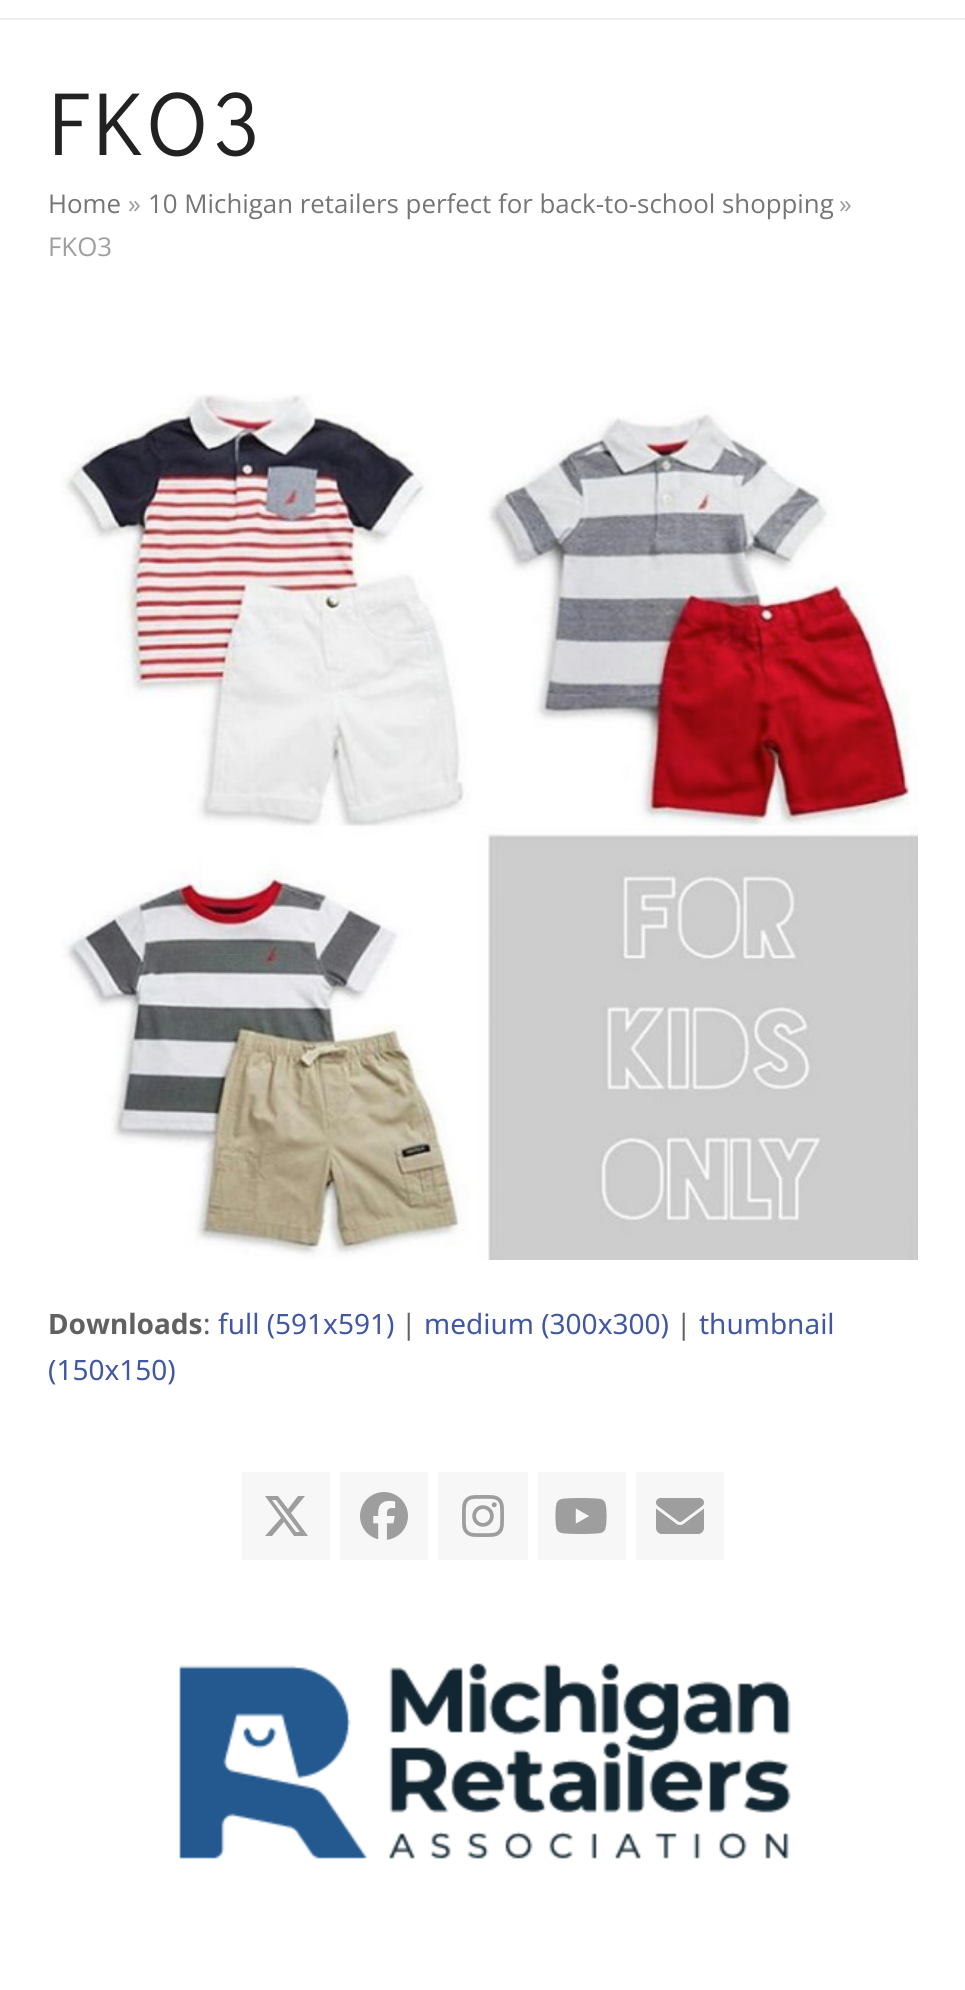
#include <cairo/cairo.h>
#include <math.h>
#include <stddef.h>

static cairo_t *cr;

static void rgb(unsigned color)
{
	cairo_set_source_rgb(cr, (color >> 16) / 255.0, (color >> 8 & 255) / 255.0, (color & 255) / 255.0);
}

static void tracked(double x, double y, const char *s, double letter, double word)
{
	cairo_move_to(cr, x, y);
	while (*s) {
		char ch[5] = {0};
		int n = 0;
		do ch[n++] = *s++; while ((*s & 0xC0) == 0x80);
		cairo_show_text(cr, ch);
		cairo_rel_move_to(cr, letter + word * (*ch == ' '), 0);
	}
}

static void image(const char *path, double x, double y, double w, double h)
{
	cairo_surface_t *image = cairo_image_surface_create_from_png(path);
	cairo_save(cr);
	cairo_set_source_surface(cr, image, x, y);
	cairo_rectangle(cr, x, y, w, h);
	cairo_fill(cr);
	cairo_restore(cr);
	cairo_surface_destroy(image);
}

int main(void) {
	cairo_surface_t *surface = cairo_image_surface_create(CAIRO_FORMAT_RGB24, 965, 1990);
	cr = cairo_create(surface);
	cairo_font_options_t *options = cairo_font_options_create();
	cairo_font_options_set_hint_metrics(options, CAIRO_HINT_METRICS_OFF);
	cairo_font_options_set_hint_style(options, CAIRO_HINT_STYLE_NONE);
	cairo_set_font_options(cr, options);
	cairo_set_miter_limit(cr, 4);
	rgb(0xffffff);
	cairo_paint(cr);
	rgb(0xeeeeee);
	cairo_rectangle(cr, 0, 18, 965, 2);
	cairo_fill(cr);
	image("img/1.png", 61, 394, 857, 866);
	rgb(0xf7f7f7);
	cairo_rectangle(cr, 242, 1472, 88, 88);
	cairo_fill(cr);
	rgb(0x9e9e9e);
	cairo_new_path(cr);
	cairo_move_to(cr, 298, 1496);
	cairo_line_to(cr, 305, 1496);
	cairo_line_to(cr, 291, 1513);
	cairo_line_to(cr, 308, 1536);
	cairo_line_to(cr, 294, 1536);
	cairo_line_to(cr, 284, 1522);
	cairo_line_to(cr, 272, 1536);
	cairo_line_to(cr, 265, 1536);
	cairo_line_to(cr, 281, 1518);
	cairo_line_to(cr, 265, 1496);
	cairo_line_to(cr, 278, 1496);
	cairo_line_to(cr, 288, 1509);
	cairo_close_path(cr);
	cairo_move_to(cr, 296, 1532);
	cairo_line_to(cr, 300, 1532);
	cairo_line_to(cr, 276, 1500);
	cairo_line_to(cr, 272, 1500);
	cairo_close_path(cr);
	cairo_fill(cr);
	rgb(0xf7f7f7);
	cairo_rectangle(cr, 340, 1472, 88, 88);
	cairo_fill(cr);
	image("img/2.png", 360, 1492, 48, 48);
	cairo_rectangle(cr, 438, 1472, 90, 88);
	cairo_fill(cr);
	image("img/3.png", 462, 1495, 42, 42);
	cairo_rectangle(cr, 538, 1472, 88, 88);
	cairo_fill(cr);
	image("img/4.png", 555, 1498, 52, 36);
	cairo_rectangle(cr, 636, 1472, 88, 88);
	cairo_fill(cr);
	image("img/5.png", 656, 1498, 48, 36);
	image("img/6.png", 179, 1663, 612, 196);
	cairo_select_font_face(cr, "Didact Gothic", CAIRO_FONT_SLANT_NORMAL, CAIRO_FONT_WEIGHT_NORMAL);
	cairo_set_font_size(cr, 90);
	rgb(0x222222);
	tracked(48, 155, "FKO3", 4, 0);
	cairo_select_font_face(cr, "Open Sans", CAIRO_FONT_SLANT_NORMAL, CAIRO_FONT_WEIGHT_NORMAL);
	cairo_set_font_size(cr, 25.85);
	rgb(0x757575);
	cairo_move_to(cr, 48, 213);
	cairo_show_text(cr, "Home");
	rgb(0x9e9e9e);
	cairo_move_to(cr, 128, 213);
	cairo_show_text(cr, "»");
	rgb(0x757575);
	cairo_move_to(cr, 148, 213);
	cairo_show_text(cr, "10 Michigan retailers perfect for back-to-school shopping");
	rgb(0x9e9e9e);
	cairo_move_to(cr, 839, 213);
	cairo_show_text(cr, "»");
	cairo_move_to(cr, 48, 256);
	cairo_show_text(cr, "FKO3");
	cairo_select_font_face(cr, "Noto Sans", CAIRO_FONT_SLANT_NORMAL, CAIRO_FONT_WEIGHT_BOLD);
	cairo_set_font_size(cr, 28);
	rgb(0x616161);
	cairo_move_to(cr, 48, 1334);
	cairo_show_text(cr, "Downloads");
	cairo_select_font_face(cr, "Noto Sans", CAIRO_FONT_SLANT_NORMAL, CAIRO_FONT_WEIGHT_NORMAL);
	cairo_move_to(cr, 203, 1334);
	cairo_show_text(cr, ":");
	rgb(0x4157a3);
	cairo_move_to(cr, 218, 1334);
	cairo_show_text(cr, "full (591x591)");
	rgb(0x616161);
	cairo_move_to(cr, 401, 1334);
	cairo_show_text(cr, "|");
	rgb(0x4157a3);
	cairo_move_to(cr, 424, 1334);
	cairo_show_text(cr, "medium (300x300)");
	rgb(0x616161);
	cairo_move_to(cr, 676, 1334);
	cairo_show_text(cr, "|");
	rgb(0x4157a3);
	cairo_move_to(cr, 699, 1334);
	cairo_show_text(cr, "thumbnail");
	cairo_move_to(cr, 48, 1380);
	cairo_show_text(cr, "(150x150)");
	cairo_surface_write_to_png(surface, "page.png");
	cairo_font_options_destroy(options);
	cairo_destroy(cr);
	cairo_surface_destroy(surface);
	return 0;
}
